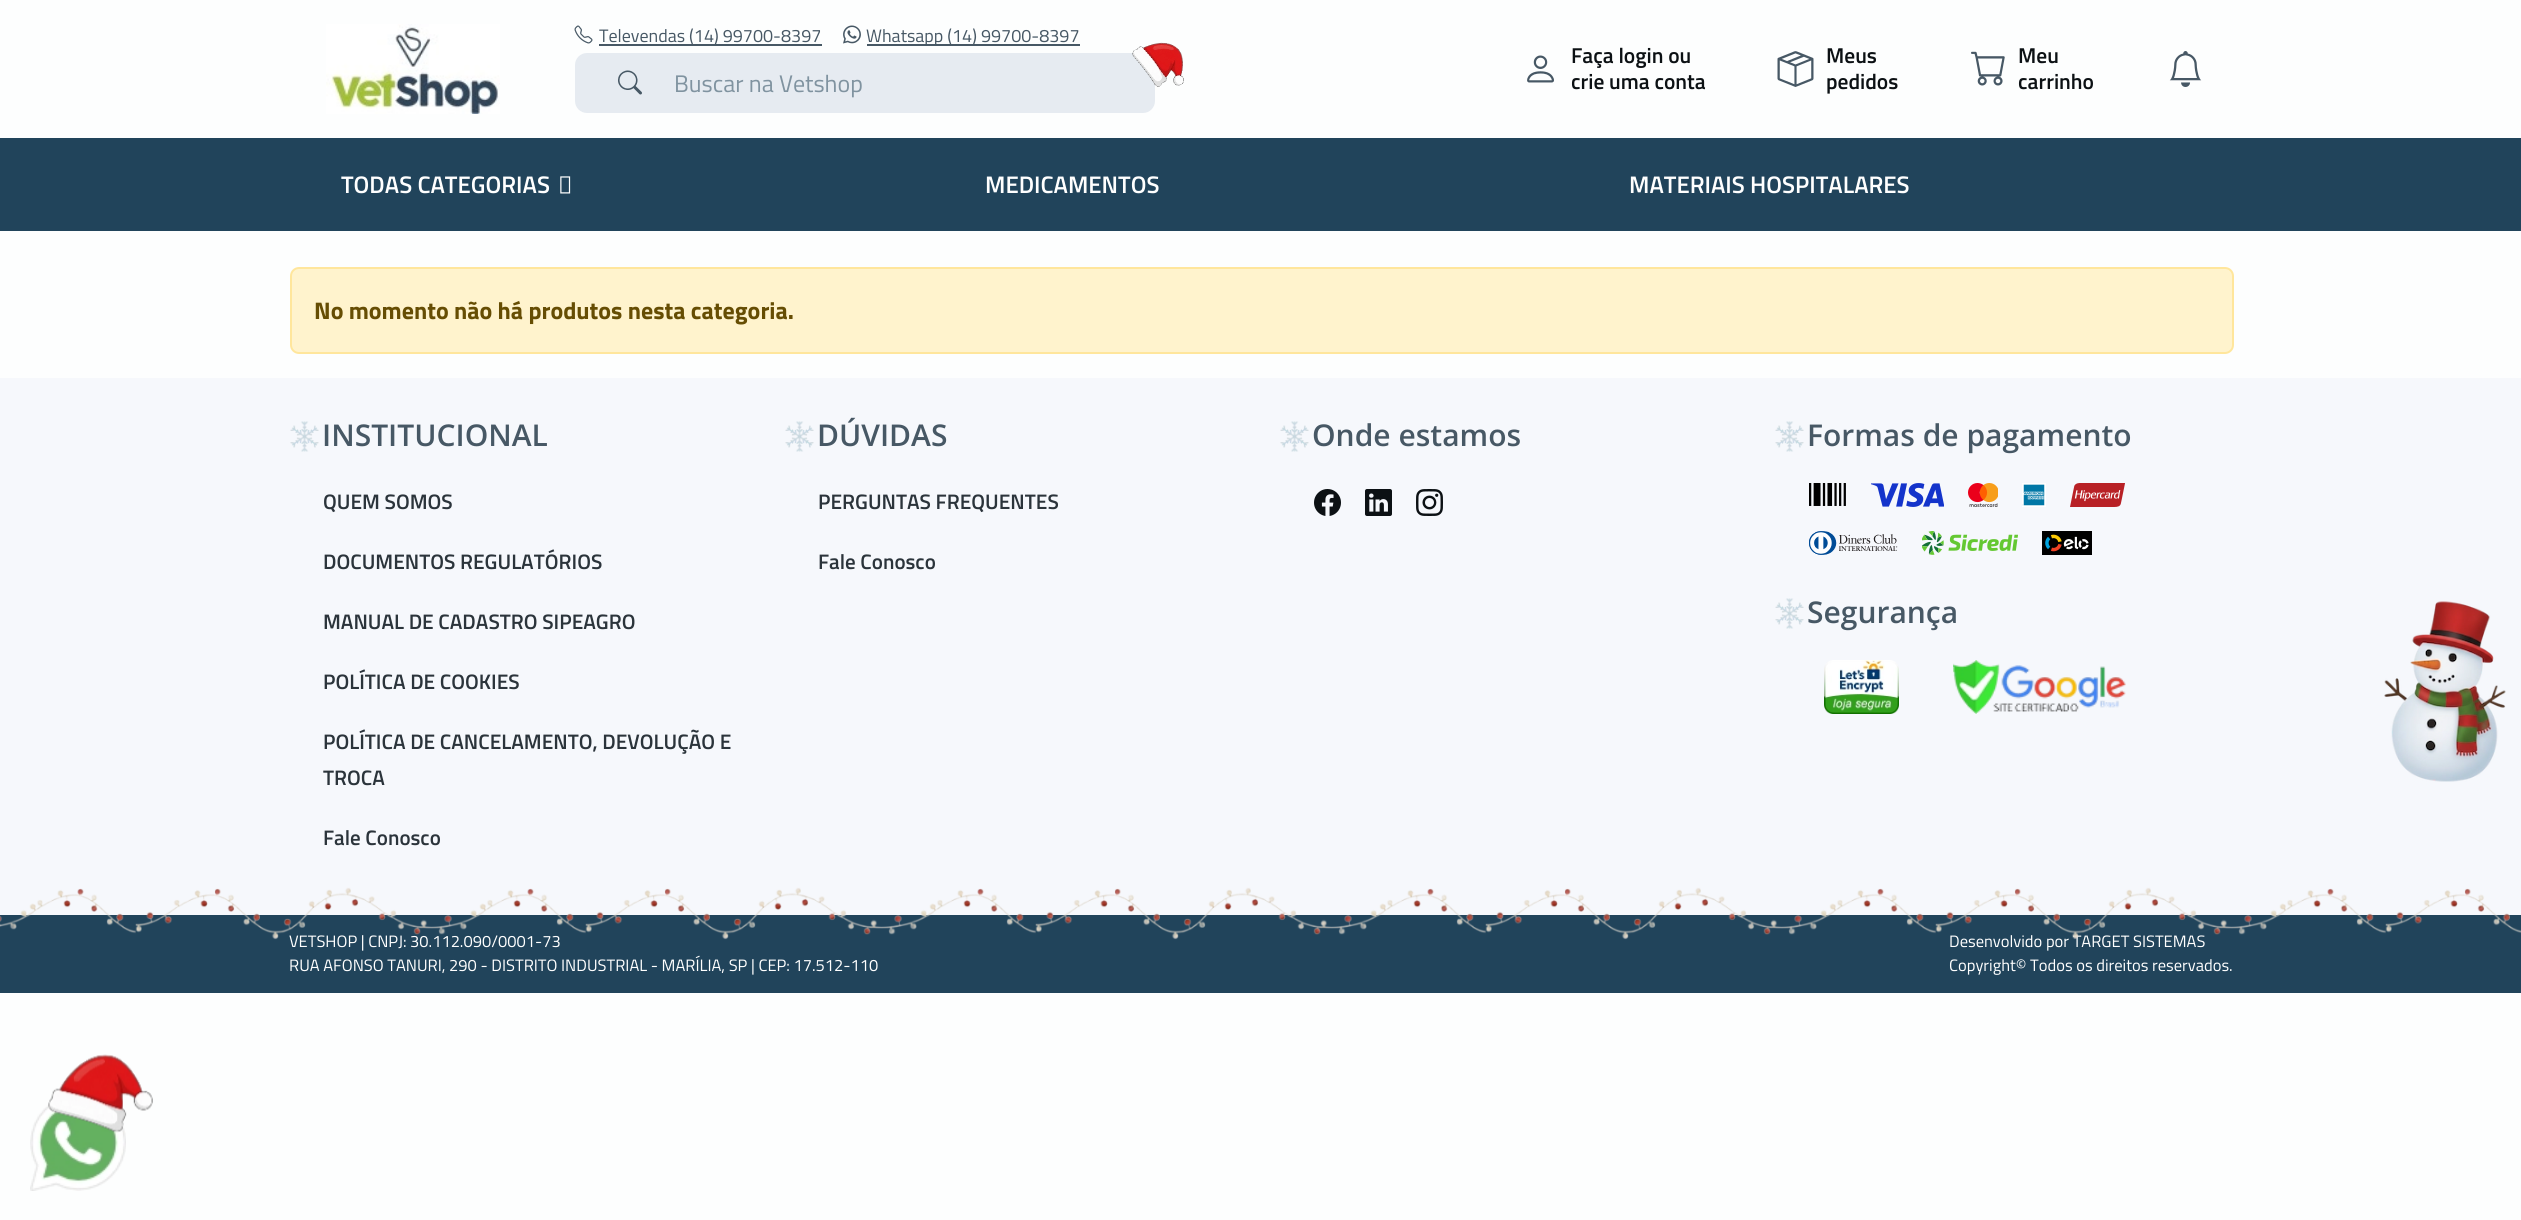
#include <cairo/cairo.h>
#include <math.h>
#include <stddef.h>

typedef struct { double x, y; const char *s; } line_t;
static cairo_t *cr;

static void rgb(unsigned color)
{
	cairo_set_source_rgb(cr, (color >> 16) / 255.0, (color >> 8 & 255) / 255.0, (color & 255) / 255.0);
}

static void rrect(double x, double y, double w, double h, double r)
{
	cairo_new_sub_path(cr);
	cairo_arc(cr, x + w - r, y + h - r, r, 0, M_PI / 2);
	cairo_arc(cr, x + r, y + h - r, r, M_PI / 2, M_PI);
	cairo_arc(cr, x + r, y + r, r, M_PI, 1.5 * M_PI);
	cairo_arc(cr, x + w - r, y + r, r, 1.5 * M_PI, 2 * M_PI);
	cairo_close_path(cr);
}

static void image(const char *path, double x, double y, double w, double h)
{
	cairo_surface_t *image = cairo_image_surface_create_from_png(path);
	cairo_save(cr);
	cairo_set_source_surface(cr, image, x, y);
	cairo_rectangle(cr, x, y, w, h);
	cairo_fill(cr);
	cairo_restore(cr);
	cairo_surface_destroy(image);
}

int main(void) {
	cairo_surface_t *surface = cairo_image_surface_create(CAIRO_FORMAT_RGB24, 2521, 1220);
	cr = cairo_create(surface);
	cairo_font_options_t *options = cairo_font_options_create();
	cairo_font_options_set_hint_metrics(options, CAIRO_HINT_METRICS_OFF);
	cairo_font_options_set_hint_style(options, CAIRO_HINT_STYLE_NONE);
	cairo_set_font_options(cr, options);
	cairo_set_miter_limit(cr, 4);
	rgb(0xfdfefe);
	cairo_paint(cr);
	image("img/1.png", 326, 24, 174, 90);
	image("img/2.png", 574, 25, 19, 19);
	rgb(0x475865);
	cairo_rectangle(cr, 599, 44, 223, 2);
	cairo_fill(cr);
	image("img/3.png", 843, 25, 18, 19);
	cairo_rectangle(cr, 867, 44, 213, 2);
	cairo_fill(cr);
	rgb(0xe6ebf1);
	rrect(575, 53, 580, 60, 12);
	cairo_fill(cr);
	image("img/4.png", 618, 70, 24, 25);
	image("img/5.png", 1132, 42, 52, 45);
	image("img/6.png", 1527, 55, 27, 28);
	image("img/7.png", 1777, 51, 37, 36);
	image("img/8.png", 1971, 51, 34, 35);
	image("img/9.png", 2169, 51, 33, 36);
	rgb(0x21445b);
	cairo_rectangle(cr, 0, 138, 2521, 93);
	cairo_fill(cr);
	image("img/10.png", 560, 176, 11, 18);
	rgb(0xfff3cd);
	rrect(291, 268, 1942, 85, 8);
	cairo_fill_preserve(cr);
	rgb(0xffe69c);
	cairo_stroke(cr);
	rgb(0xf6f8fc);
	cairo_rectangle(cr, 0, 378, 2521, 537);
	cairo_fill(cr);
	image("img/11.png", 290, 421, 29, 31);
	image("img/11.png", 785, 421, 29, 31);
	image("img/12.png", 1280, 421, 29, 31);
	image("img/13.png", 1314, 489, 27, 27);
	image("img/14.png", 1365, 489, 27, 27);
	image("img/15.png", 1416, 489, 27, 27);
	image("img/12.png", 1775, 421, 29, 31);
	image("img/16.png", 1809, 483, 37, 23);
	image("img/17.png", 1871, 483, 73, 24);
	image("img/18.png", 1968, 483, 30, 24);
	image("img/19.png", 2022, 483, 24, 24);
	image("img/20.png", 2070, 483, 55, 24);
	image("img/21.png", 1809, 531, 89, 24);
	image("img/22.png", 1922, 531, 96, 24);
	image("img/23.png", 2042, 531, 50, 24);
	image("img/12.png", 1775, 598, 29, 31);
	image("img/24.png", 1824, 660, 75, 54);
	image("img/25.png", 1953, 660, 173, 54);
	rgb(0x21445b);
	cairo_rectangle(cr, 0, 915, 2521, 78);
	cairo_fill(cr);
	image("img/26.png", 2384, 601, 122, 181);
	image("img/29.png", 30, 1103, 96, 88);
	image("img/28.png", 48, 1054, 105, 79);
	cairo_select_font_face(cr, "Titillium Web", CAIRO_FONT_SLANT_NORMAL, CAIRO_FONT_WEIGHT_NORMAL);
	cairo_set_font_size(cr, 18);
	rgb(0x475865);
	cairo_move_to(cr, 599, 42);
	cairo_show_text(cr, "Televendas (14) 99700-8397");
	cairo_move_to(cr, 866, 42);
	cairo_show_text(cr, "Whatsapp (14) 99700-8397");
	cairo_set_font_size(cr, 24);
	rgb(0x8093a0);
	cairo_move_to(cr, 674, 92);
	cairo_show_text(cr, "Buscar na Vetshop");
	cairo_select_font_face(cr, "Titillium Web SemiBold", CAIRO_FONT_SLANT_NORMAL, CAIRO_FONT_WEIGHT_NORMAL);
	cairo_set_font_size(cr, 21.5);
	rgb(0x0c1114);
	{
		static const line_t items[] = {
			{1571, 63, "Faça login ou"},
			{1571, 89, "crie uma conta"},
			{1826, 63, "Meus"},
			{1826, 89, "pedidos"},
			{2018, 63, "Meu"},
			{2018, 89, "carrinho"},
		};
		for (size_t i = 0; i < sizeof items / sizeof *items; i++) {
			cairo_move_to(cr, items[i].x, items[i].y);
			cairo_show_text(cr, items[i].s);
		}
	}
	cairo_set_font_size(cr, 24);
	rgb(0xffffff);
	{
		static const line_t items[] = {
			{341, 193, "TODAS CATEGORIAS"},
			{985, 193, "MEDICAMENTOS"},
			{1629, 193, "MATERIAIS HOSPITALARES"},
		};
		for (size_t i = 0; i < sizeof items / sizeof *items; i++) {
			cairo_move_to(cr, items[i].x, items[i].y);
			cairo_show_text(cr, items[i].s);
		}
	}
	cairo_select_font_face(cr, "Titillium Web", CAIRO_FONT_SLANT_NORMAL, CAIRO_FONT_WEIGHT_BOLD);
	rgb(0x664d03);
	cairo_move_to(cr, 314, 319);
	cairo_show_text(cr, "No momento não há produtos nesta categoria.");
	cairo_select_font_face(cr, "Open Sans SemiBold", CAIRO_FONT_SLANT_NORMAL, CAIRO_FONT_WEIGHT_NORMAL);
	cairo_set_font_size(cr, 30);
	rgb(0x475865);
	cairo_move_to(cr, 322, 446);
	cairo_show_text(cr, "INSTITUCIONAL");
	cairo_select_font_face(cr, "Titillium Web SemiBold", CAIRO_FONT_SLANT_NORMAL, CAIRO_FONT_WEIGHT_NORMAL);
	cairo_set_font_size(cr, 21);
	rgb(0x2b343b);
	{
		static const line_t items[] = {
			{323, 509, "QUEM SOMOS"},
			{323, 569, "DOCUMENTOS REGULATÓRIOS"},
			{323, 629, "MANUAL DE CADASTRO SIPEAGRO"},
			{323, 689, "POLÍTICA DE COOKIES"},
			{323, 749, "POLÍTICA DE CANCELAMENTO, DEVOLUÇÃO E"},
			{323, 785, "TROCA"},
			{323, 845, "Fale Conosco"},
		};
		for (size_t i = 0; i < sizeof items / sizeof *items; i++) {
			cairo_move_to(cr, items[i].x, items[i].y);
			cairo_show_text(cr, items[i].s);
		}
	}
	cairo_select_font_face(cr, "Open Sans SemiBold", CAIRO_FONT_SLANT_NORMAL, CAIRO_FONT_WEIGHT_NORMAL);
	cairo_set_font_size(cr, 30);
	rgb(0x475865);
	cairo_move_to(cr, 817, 446);
	cairo_show_text(cr, "DÚVIDAS");
	cairo_select_font_face(cr, "Titillium Web SemiBold", CAIRO_FONT_SLANT_NORMAL, CAIRO_FONT_WEIGHT_NORMAL);
	cairo_set_font_size(cr, 21);
	rgb(0x2b343b);
	cairo_move_to(cr, 818, 509);
	cairo_show_text(cr, "PERGUNTAS FREQUENTES");
	cairo_move_to(cr, 818, 569);
	cairo_show_text(cr, "Fale Conosco");
	cairo_select_font_face(cr, "Open Sans SemiBold", CAIRO_FONT_SLANT_NORMAL, CAIRO_FONT_WEIGHT_NORMAL);
	cairo_set_font_size(cr, 30);
	rgb(0x475865);
	{
		static const line_t items[] = {
			{1312, 446, "Onde estamos"},
			{1807, 446, "Formas de pagamento"},
			{1807, 623, "Segurança"},
		};
		for (size_t i = 0; i < sizeof items / sizeof *items; i++) {
			cairo_move_to(cr, items[i].x, items[i].y);
			cairo_show_text(cr, items[i].s);
		}
	}
	cairo_select_font_face(cr, "Titillium Web", CAIRO_FONT_SLANT_NORMAL, CAIRO_FONT_WEIGHT_NORMAL);
	cairo_set_font_size(cr, 16.5);
	rgb(0xffffff);
	{
		static const line_t items[] = {
			{289, 947, "VETSHOP | CNPJ: 30.112.090/0001-73"},
			{289, 971, "RUA AFONSO TANURI, 290 - DISTRITO INDUSTRIAL - MARÍLIA, SP | CEP: 17.512-110"},
			{1949, 947, "Desenvolvido por TARGET SISTEMAS"},
		};
		for (size_t i = 0; i < sizeof items / sizeof *items; i++) {
			cairo_move_to(cr, items[i].x, items[i].y);
			cairo_show_text(cr, items[i].s);
		}
	}
	image("img/27.png", 0, 887, 2521, 53);
	cairo_move_to(cr, 1949, 971);
	cairo_show_text(cr, "Copyright© Todos os direitos reservados.");
	cairo_surface_write_to_png(surface, "page.png");
	cairo_font_options_destroy(options);
	cairo_destroy(cr);
	cairo_surface_destroy(surface);
	return 0;
}
